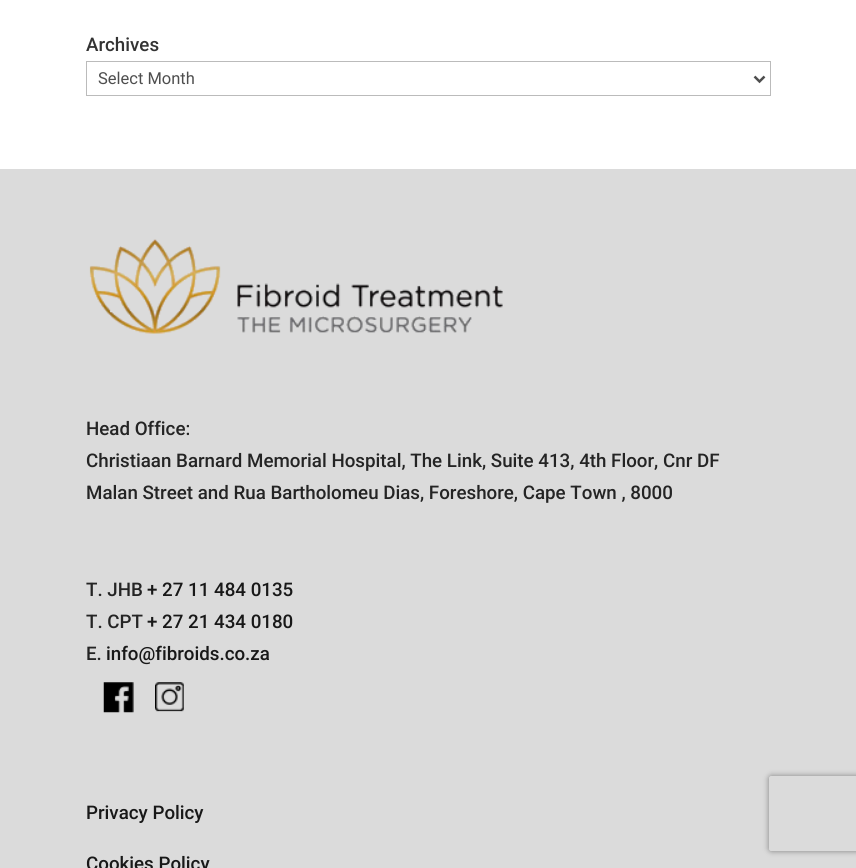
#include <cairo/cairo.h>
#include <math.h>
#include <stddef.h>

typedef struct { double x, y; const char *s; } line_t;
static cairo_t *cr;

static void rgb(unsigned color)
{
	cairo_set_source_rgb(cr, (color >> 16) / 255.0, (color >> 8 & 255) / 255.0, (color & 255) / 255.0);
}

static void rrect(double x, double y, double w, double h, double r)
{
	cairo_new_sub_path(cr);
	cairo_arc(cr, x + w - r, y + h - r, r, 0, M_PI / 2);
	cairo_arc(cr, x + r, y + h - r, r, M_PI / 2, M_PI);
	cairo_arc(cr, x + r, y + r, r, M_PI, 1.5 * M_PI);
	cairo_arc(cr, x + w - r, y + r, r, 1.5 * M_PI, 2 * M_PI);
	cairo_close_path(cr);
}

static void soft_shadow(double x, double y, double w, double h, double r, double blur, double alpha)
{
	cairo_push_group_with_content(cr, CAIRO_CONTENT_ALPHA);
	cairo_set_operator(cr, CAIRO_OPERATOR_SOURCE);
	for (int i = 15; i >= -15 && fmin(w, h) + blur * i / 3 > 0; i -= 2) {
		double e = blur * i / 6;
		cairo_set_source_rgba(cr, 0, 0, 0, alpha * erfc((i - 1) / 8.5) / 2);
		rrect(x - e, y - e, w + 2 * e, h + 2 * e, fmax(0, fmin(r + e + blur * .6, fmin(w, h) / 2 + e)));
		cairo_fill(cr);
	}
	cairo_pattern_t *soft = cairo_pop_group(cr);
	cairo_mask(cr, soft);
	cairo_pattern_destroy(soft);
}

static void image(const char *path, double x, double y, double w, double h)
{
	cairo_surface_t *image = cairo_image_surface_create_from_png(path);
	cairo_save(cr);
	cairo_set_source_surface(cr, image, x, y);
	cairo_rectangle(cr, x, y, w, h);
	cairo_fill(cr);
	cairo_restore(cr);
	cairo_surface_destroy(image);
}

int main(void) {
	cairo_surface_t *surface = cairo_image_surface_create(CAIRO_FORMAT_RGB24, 856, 868);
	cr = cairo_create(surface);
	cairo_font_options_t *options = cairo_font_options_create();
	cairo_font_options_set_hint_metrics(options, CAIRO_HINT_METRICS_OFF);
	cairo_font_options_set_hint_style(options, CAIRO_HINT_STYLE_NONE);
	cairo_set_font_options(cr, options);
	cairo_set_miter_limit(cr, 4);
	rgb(0xffffff);
	cairo_paint(cr);
	cairo_rectangle(cr, 86.5, 61.5, 684, 34);
	rgb(0xbbbbbb);
	cairo_set_line_width(cr, 1);
	cairo_stroke(cr);
	cairo_new_path(cr);
	cairo_move_to(cr, 754.5, 76.5);
	cairo_line_to(cr, 759.5, 81.5);
	cairo_line_to(cr, 764.5, 76.5);
	rgb(0x4e4e4e);
	cairo_set_line_width(cr, 2.5);
	cairo_stroke(cr);
	rgb(0xdbdbdb);
	cairo_rectangle(cr, 0, 169, 856, 699);
	cairo_fill(cr);
	image("img/1.png", 89, 239, 414, 95);
	image("img/2.png", 103, 682, 31, 31);
	image("img/3.png", 155, 682, 29, 30);
	cairo_save(cr);
	cairo_set_fill_rule(cr, CAIRO_FILL_RULE_EVEN_ODD);
	cairo_new_path(cr);
	cairo_move_to(cr, 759, 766);
	cairo_line_to(cr, 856, 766);
	cairo_line_to(cr, 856, 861);
	cairo_line_to(cr, 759, 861);
	cairo_close_path(cr);
	cairo_move_to(cr, 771.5, 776);
	cairo_line_to(cr, 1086.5, 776);
	cairo_curve_to(cr, 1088, 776, 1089, 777, 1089, 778.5);
	cairo_line_to(cr, 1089, 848.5);
	cairo_curve_to(cr, 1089, 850, 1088, 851, 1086.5, 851);
	cairo_line_to(cr, 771.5, 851);
	cairo_curve_to(cr, 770, 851, 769, 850, 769, 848.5);
	cairo_line_to(cr, 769, 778.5);
	cairo_curve_to(cr, 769, 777, 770, 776, 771.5, 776);
	cairo_close_path(cr);
	cairo_clip(cr);
	rgb(0x808080);
	soft_shadow(769, 776, 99, 75, 2.5, 3, 1);
	cairo_restore(cr);
	cairo_select_font_face(cr, "Roboto Medium", CAIRO_FONT_SLANT_NORMAL, CAIRO_FONT_WEIGHT_NORMAL);
	cairo_set_font_size(cr, 18.75);
	rgb(0x333333);
	cairo_move_to(cr, 86, 51);
	cairo_show_text(cr, "Archives");
	cairo_select_font_face(cr, "Roboto", CAIRO_FONT_SLANT_NORMAL, CAIRO_FONT_WEIGHT_NORMAL);
	cairo_set_font_size(cr, 16.5);
	rgb(0x4e4e4e);
	cairo_move_to(cr, 98, 84);
	cairo_show_text(cr, "Select Month");
	cairo_select_font_face(cr, "Roboto Medium", CAIRO_FONT_SLANT_NORMAL, CAIRO_FONT_WEIGHT_NORMAL);
	cairo_set_font_size(cr, 18.75);
	rgb(0x242424);
	{
		static const line_t items[] = {
			{86, 435, "Head Office:"},
			{86, 467, "Christiaan Barnard Memorial Hospital, The Link, Suite 413, 4th Floor, Cnr DF"},
			{86, 499, "Malan Street and Rua Bartholomeu Dias, Foreshore, Cape Town , 8000"},
			{86, 596, "T. JHB"},
		};
		for (size_t i = 0; i < sizeof items / sizeof *items; i++) {
			cairo_move_to(cr, items[i].x, items[i].y);
			cairo_show_text(cr, items[i].s);
		}
	}
	rgb(0x181818);
	cairo_move_to(cr, 147, 596);
	cairo_show_text(cr, "+ 27 11 484 0135");
	rgb(0x242424);
	cairo_move_to(cr, 86, 628);
	cairo_show_text(cr, "T. CPT");
	rgb(0x181818);
	cairo_move_to(cr, 147, 628);
	cairo_show_text(cr, "+ 27 21 434 0180");
	rgb(0x242424);
	cairo_move_to(cr, 86, 660);
	cairo_show_text(cr, "E.");
	rgb(0x181818);
	{
		static const line_t items[] = {
			{106, 660, "info@fibroids.co.za"},
			{86, 819, "Privacy Policy"},
			{86, 870, "Cookies Policy"},
		};
		for (size_t i = 0; i < sizeof items / sizeof *items; i++) {
			cairo_move_to(cr, items[i].x, items[i].y);
			cairo_show_text(cr, items[i].s);
		}
	}
	cairo_surface_write_to_png(surface, "page.png");
	cairo_font_options_destroy(options);
	cairo_destroy(cr);
	cairo_surface_destroy(surface);
	return 0;
}
